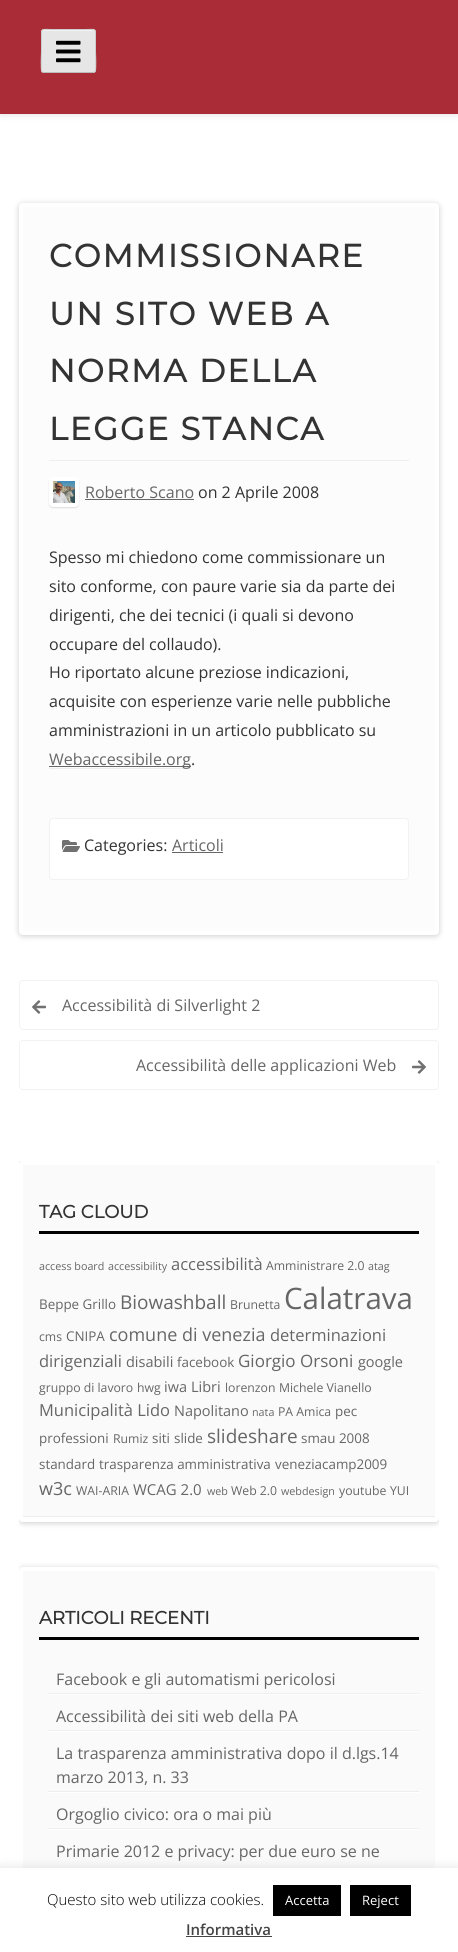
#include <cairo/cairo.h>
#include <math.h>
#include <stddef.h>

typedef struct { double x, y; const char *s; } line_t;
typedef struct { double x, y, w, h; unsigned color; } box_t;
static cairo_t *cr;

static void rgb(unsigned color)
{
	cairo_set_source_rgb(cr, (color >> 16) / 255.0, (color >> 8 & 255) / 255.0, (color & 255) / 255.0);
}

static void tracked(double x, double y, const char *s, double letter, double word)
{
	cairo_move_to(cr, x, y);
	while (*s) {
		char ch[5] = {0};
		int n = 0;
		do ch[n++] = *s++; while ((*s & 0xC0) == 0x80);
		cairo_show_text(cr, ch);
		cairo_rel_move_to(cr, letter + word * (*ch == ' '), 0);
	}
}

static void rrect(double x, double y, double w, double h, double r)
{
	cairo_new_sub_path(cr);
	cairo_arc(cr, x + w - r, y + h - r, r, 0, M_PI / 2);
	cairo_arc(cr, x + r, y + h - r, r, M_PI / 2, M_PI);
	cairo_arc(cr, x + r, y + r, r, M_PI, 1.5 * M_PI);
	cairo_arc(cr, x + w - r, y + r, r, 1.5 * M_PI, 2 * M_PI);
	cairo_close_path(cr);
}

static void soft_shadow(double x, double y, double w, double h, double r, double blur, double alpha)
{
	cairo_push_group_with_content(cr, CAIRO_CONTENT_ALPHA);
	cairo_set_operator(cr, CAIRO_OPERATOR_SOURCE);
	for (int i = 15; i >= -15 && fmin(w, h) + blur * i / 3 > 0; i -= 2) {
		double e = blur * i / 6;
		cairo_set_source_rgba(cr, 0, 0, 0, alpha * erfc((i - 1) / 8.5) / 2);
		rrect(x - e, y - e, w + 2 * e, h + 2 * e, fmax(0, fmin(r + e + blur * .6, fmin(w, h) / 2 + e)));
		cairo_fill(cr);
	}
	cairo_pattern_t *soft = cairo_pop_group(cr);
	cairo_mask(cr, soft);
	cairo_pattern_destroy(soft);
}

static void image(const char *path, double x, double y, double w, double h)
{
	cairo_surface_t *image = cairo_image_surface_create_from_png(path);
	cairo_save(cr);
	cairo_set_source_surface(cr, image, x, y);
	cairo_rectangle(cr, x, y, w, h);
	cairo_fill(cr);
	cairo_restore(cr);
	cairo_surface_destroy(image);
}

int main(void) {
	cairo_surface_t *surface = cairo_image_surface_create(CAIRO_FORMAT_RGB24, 458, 1952);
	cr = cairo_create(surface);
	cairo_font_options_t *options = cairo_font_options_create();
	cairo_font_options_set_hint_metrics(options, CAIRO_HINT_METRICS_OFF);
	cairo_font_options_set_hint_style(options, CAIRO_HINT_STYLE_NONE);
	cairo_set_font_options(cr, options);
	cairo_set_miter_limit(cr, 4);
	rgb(0xffffff);
	cairo_paint(cr);
	rgb(0x000000);
	soft_shadow(0, 2, 458, 114, 0, 3, 0.09);
	rgb(0xaa2c37);
	cairo_rectangle(cr, 0, 0, 458, 114);
	cairo_fill(cr);
	rgb(0xe6e6e6);
	rrect(41, 29, 55, 44, 3);
	cairo_fill(cr);
	rgb(0xf3f3f3);
	cairo_new_path(cr);
	cairo_move_to(cr, 44, 31);
	cairo_line_to(cr, 93, 31);
	cairo_curve_to(cr, 94, 31, 95, 32, 95, 33);
	cairo_curve_to(cr, 95, 28, 89, 30, 85, 30);
	cairo_line_to(cr, 52, 30);
	cairo_curve_to(cr, 48, 30, 42, 28, 42, 33);
	cairo_curve_to(cr, 42, 32, 43, 31, 44, 31);
	cairo_close_path(cr);
	cairo_fill(cr);
	cairo_new_path(cr);
	cairo_move_to(cr, 95, 72);
	cairo_line_to(cr, 93, 72.5);
	cairo_line_to(cr, 44, 72.5);
	cairo_line_to(cr, 42, 72);
	rgb(0xbbbbbb);
	cairo_set_line_width(cr, 1);
	cairo_stroke(cr);
	cairo_new_path(cr);
	cairo_move_to(cr, 42, 72);
	cairo_curve_to(cr, 40.5, 70, 41.5, 54, 41.5, 51);
	cairo_line_to(cr, 41.5, 38.5);
	cairo_curve_to(cr, 41.5, 27.5, 41, 29.5, 52, 29.5);
	cairo_line_to(cr, 85, 29.5);
	cairo_curve_to(cr, 96, 29.5, 95.5, 27.5, 95.5, 38.5);
	cairo_line_to(cr, 95.5, 51);
	cairo_curve_to(cr, 95.5, 54, 96.5, 70, 95, 72);
	rgb(0xcccccc);
	cairo_stroke(cr);
	image("img/1.png", 56, 40, 25, 23);
	rgb(0x000000);
	soft_shadow(19, 204, 420, 732, 4, 3, 0.2);
	rgb(0xfcfcfc);
	rrect(21, 205, 416, 728, 2);
	cairo_fill_preserve(cr);
	rgb(0xffffff);
	cairo_set_line_width(cr, 4);
	cairo_stroke(cr);
	rgb(0xeeeeee);
	cairo_rectangle(cr, 49, 460, 360, 1);
	cairo_fill(cr);
	rgb(0x000000);
	soft_shadow(49, 478, 30, 30, 4, 0.5, 0.12);
	rrect(51, 479, 26, 26, 2);
	rgb(0xffffff);
	cairo_stroke(cr);
	image("img/2.png", 53, 481, 22, 22);
	{
		static const box_t items[] = {
			{85, 499, 109, 1, 0x666666},
			{49, 768, 142, 1, 0xeeeeee},
			{49, 766, 142, 1, 0x666666},
		};
		for (size_t i = 0; i < sizeof items / sizeof *items; i++) {
			rgb(items[i].color);
			cairo_rectangle(cr, items[i].x, items[i].y, items[i].w, items[i].h);
			cairo_fill(cr);
		}
	}
	rgb(0xffffff);
	rrect(49.5, 818.5, 359, 61, 3.5);
	cairo_fill_preserve(cr);
	rgb(0xf2f2f2);
	cairo_set_line_width(cr, 1);
	cairo_stroke(cr);
	image("img/3.png", 62, 840, 18, 12);
	rgb(0x666666);
	cairo_rectangle(cr, 172, 852, 51, 1);
	cairo_fill(cr);
	rrect(19.5, 980.5, 419, 49, 3.5);
	rgb(0xf2f2f2);
	cairo_stroke(cr);
	image("img/4.png", 32, 1000, 14, 14);
	rrect(19.5, 1040.5, 419, 49, 3.5);
	cairo_stroke(cr);
	image("img/5.png", 412, 1060, 14, 14);
	cairo_save(cr);
	cairo_rectangle(cr, 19, 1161, 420, 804);
	cairo_clip(cr);
	rgb(0x000000);
	soft_shadow(19, 1162, 420, 361, 4, 3, 0.2);
	cairo_restore(cr);
	rgb(0xfafafa);
	rrect(19, 1161, 420, 361, 4);
	cairo_fill(cr);
	image("img/6.png", 23, 1516, 412, 2);
	rrect(21, 1163, 416, 357, 2);
	rgb(0xffffff);
	cairo_set_line_width(cr, 4);
	cairo_stroke(cr);
	rgb(0x000000);
	cairo_rectangle(cr, 39, 1231, 380, 3);
	cairo_fill(cr);
	cairo_save(cr);
	cairo_rectangle(cr, 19, 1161, 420, 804);
	cairo_clip(cr);
	rgb(0x000000);
	soft_shadow(19, 1568, 420, 353, 4, 3, 0.2);
	cairo_restore(cr);
	rgb(0xfafafa);
	rrect(21, 1569, 416, 349, 2);
	cairo_fill_preserve(cr);
	rgb(0xffffff);
	cairo_stroke(cr);
	rgb(0x000000);
	cairo_rectangle(cr, 39, 1637, 380, 3);
	cairo_fill(cr);
	image("img/7.png", 48, 1693, 371, 2);
	image("img/7.png", 48, 1730, 371, 2);
	image("img/7.png", 48, 1791, 371, 2);
	image("img/7.png", 48, 1828, 371, 2);
	rgb(0xacabab);
	soft_shadow(0, 1867, 458, 84, 0, 5, 0.3);
	{
		static const box_t items[] = {
			{0, 1868, 458, 84, 0xffffff},
			{273, 1885, 68, 31, 0x000000},
			{350, 1885, 61, 31, 0x000000},
			{186, 1936, 86, 1, 0x444444},
		};
		for (size_t i = 0; i < sizeof items / sizeof *items; i++) {
			rgb(items[i].color);
			cairo_rectangle(cr, items[i].x, items[i].y, items[i].w, items[i].h);
			cairo_fill(cr);
		}
	}
	cairo_select_font_face(cr, "Montserrat", CAIRO_FONT_SLANT_NORMAL, CAIRO_FONT_WEIGHT_BOLD);
	cairo_set_font_size(cr, 32);
	rgb(0x333333);
	{
		static const line_t items[] = {
			{49, 267, "COMMISSIONARE"},
			{49, 325, "UN SITO WEB A"},
			{49, 382, "NORMA DELLA"},
			{49, 440, "LEGGE STANCA"},
		};
		for (size_t i = 0; i < sizeof items / sizeof *items; i++) {
			tracked(items[i].x, items[i].y, items[i].s, 2, 0);
		}
	}
	cairo_select_font_face(cr, "Open Sans", CAIRO_FONT_SLANT_NORMAL, CAIRO_FONT_WEIGHT_NORMAL);
	cairo_set_font_size(cr, 16);
	rgb(0x666666);
	cairo_move_to(cr, 85, 498);
	cairo_show_text(cr, "Roberto Scano");
	rgb(0x333333);
	{
		static const line_t items[] = {
			{198, 498, "on 2 Aprile 2008"},
			{49, 563, "Spesso mi chiedono come commissionare un"},
			{49, 592, "sito conforme, con paure varie sia da parte dei"},
			{49, 621, "dirigenti, che dei tecnici (i quali si devono"},
			{49, 650, "occupare del collaudo)."},
			{49, 678, "Ho riportato alcune preziose indicazioni,"},
			{49, 707, "acquisite con esperienze varie nelle pubbliche"},
			{49, 736, "amministrazioni in un articolo pubblicato su"},
		};
		for (size_t i = 0; i < sizeof items / sizeof *items; i++) {
			cairo_move_to(cr, items[i].x, items[i].y);
			cairo_show_text(cr, items[i].s);
		}
	}
	rgb(0x666666);
	cairo_move_to(cr, 49, 765);
	cairo_show_text(cr, "Webaccessibile.org");
	rgb(0x333333);
	cairo_move_to(cr, 191, 765);
	cairo_show_text(cr, ".");
	cairo_move_to(cr, 84, 851);
	cairo_show_text(cr, "Categories:");
	rgb(0x666666);
	{
		static const line_t items[] = {
			{172, 851, "Articoli"},
			{62, 1011, "Accessibilità di Silverlight 2"},
			{136, 1071, "Accessibilità delle applicazioni Web"},
		};
		for (size_t i = 0; i < sizeof items / sizeof *items; i++) {
			cairo_move_to(cr, items[i].x, items[i].y);
			cairo_show_text(cr, items[i].s);
		}
	}
	cairo_select_font_face(cr, "Montserrat", CAIRO_FONT_SLANT_NORMAL, CAIRO_FONT_WEIGHT_BOLD);
	cairo_set_font_size(cr, 18);
	rgb(0x333333);
	cairo_move_to(cr, 39, 1218);
	cairo_show_text(cr, "TAG CLOUD");
	cairo_select_font_face(cr, "Open Sans", CAIRO_FONT_SLANT_NORMAL, CAIRO_FONT_WEIGHT_NORMAL);
	cairo_set_font_size(cr, 10.75);
	rgb(0x666666);
	cairo_move_to(cr, 39, 1270);
	cairo_show_text(cr, "access board");
	cairo_move_to(cr, 108, 1270);
	cairo_show_text(cr, "accessibility");
	cairo_set_font_size(cr, 16.5);
	cairo_move_to(cr, 171, 1270);
	cairo_show_text(cr, "accessibilità");
	cairo_set_font_size(cr, 12.25);
	cairo_move_to(cr, 266, 1270);
	cairo_show_text(cr, "Amministrare 2.0");
	cairo_set_font_size(cr, 10.75);
	cairo_move_to(cr, 368, 1270);
	cairo_show_text(cr, "atag");
	cairo_set_font_size(cr, 13.4);
	cairo_move_to(cr, 39, 1309);
	cairo_show_text(cr, "Beppe Grillo");
	cairo_set_font_size(cr, 19);
	cairo_move_to(cr, 120, 1309);
	cairo_show_text(cr, "Biowashball");
	cairo_set_font_size(cr, 12.25);
	cairo_move_to(cr, 230, 1309);
	cairo_show_text(cr, "Brunetta");
	cairo_set_font_size(cr, 29.5);
	cairo_move_to(cr, 284, 1309);
	cairo_show_text(cr, "Calatrava");
	cairo_set_font_size(cr, 12.25);
	cairo_move_to(cr, 39, 1341);
	cairo_show_text(cr, "cms");
	cairo_set_font_size(cr, 13.4);
	cairo_move_to(cr, 66, 1341);
	cairo_show_text(cr, "CNIPA");
	cairo_set_font_size(cr, 18);
	cairo_move_to(cr, 109, 1341);
	cairo_show_text(cr, "comune di venezia");
	cairo_set_font_size(cr, 16.5);
	cairo_move_to(cr, 270, 1341);
	cairo_show_text(cr, "determinazioni");
	cairo_move_to(cr, 39, 1367);
	cairo_show_text(cr, "dirigenziali");
	cairo_set_font_size(cr, 14.5);
	cairo_move_to(cr, 126, 1367);
	cairo_show_text(cr, "disabili");
	cairo_set_font_size(cr, 13.4);
	cairo_move_to(cr, 177, 1367);
	cairo_show_text(cr, "facebook");
	cairo_set_font_size(cr, 17);
	cairo_move_to(cr, 238, 1367);
	cairo_show_text(cr, "Giorgio Orsoni");
	cairo_set_font_size(cr, 14.5);
	cairo_move_to(cr, 358, 1367);
	cairo_show_text(cr, "google");
	cairo_set_font_size(cr, 12.25);
	cairo_move_to(cr, 39, 1392);
	cairo_show_text(cr, "gruppo di lavoro");
	cairo_move_to(cr, 137, 1392);
	cairo_show_text(cr, "hwg");
	cairo_set_font_size(cr, 14.5);
	cairo_move_to(cr, 164, 1392);
	cairo_show_text(cr, "iwa");
	cairo_move_to(cr, 191, 1392);
	cairo_show_text(cr, "Libri");
	cairo_set_font_size(cr, 12.25);
	cairo_move_to(cr, 225, 1392);
	cairo_show_text(cr, "lorenzon");
	cairo_move_to(cr, 279, 1392);
	cairo_show_text(cr, "Michele Vianello");
	cairo_set_font_size(cr, 16.5);
	cairo_move_to(cr, 39, 1416);
	cairo_show_text(cr, "Municipalità Lido");
	cairo_set_font_size(cr, 14.5);
	cairo_move_to(cr, 174, 1416);
	cairo_show_text(cr, "Napolitano");
	cairo_set_font_size(cr, 10.75);
	cairo_move_to(cr, 252, 1416);
	cairo_show_text(cr, "nata");
	cairo_set_font_size(cr, 12.25);
	cairo_move_to(cr, 278, 1416);
	cairo_show_text(cr, "PA Amica");
	cairo_set_font_size(cr, 13.4);
	cairo_move_to(cr, 335, 1416);
	cairo_show_text(cr, "pec");
	cairo_move_to(cr, 39, 1443);
	cairo_show_text(cr, "professioni");
	cairo_set_font_size(cr, 12.25);
	cairo_move_to(cr, 113, 1443);
	cairo_show_text(cr, "Rumiz");
	cairo_set_font_size(cr, 13.4);
	cairo_move_to(cr, 152, 1443);
	cairo_show_text(cr, "siti");
	cairo_move_to(cr, 174, 1443);
	cairo_show_text(cr, "slide");
	cairo_set_font_size(cr, 19);
	cairo_move_to(cr, 207, 1443);
	cairo_show_text(cr, "slideshare");
	cairo_set_font_size(cr, 13.4);
	{
		static const line_t items[] = {
			{301, 1443, "smau 2008"},
			{39, 1469, "standard"},
			{99, 1469, "trasparenza amministrativa"},
			{275, 1469, "veneziacamp2009"},
		};
		for (size_t i = 0; i < sizeof items / sizeof *items; i++) {
			cairo_move_to(cr, items[i].x, items[i].y);
			cairo_show_text(cr, items[i].s);
		}
	}
	cairo_set_font_size(cr, 18);
	cairo_move_to(cr, 39, 1495);
	cairo_show_text(cr, "w3c");
	cairo_set_font_size(cr, 12.25);
	cairo_move_to(cr, 76, 1495);
	cairo_show_text(cr, "WAI-ARIA");
	cairo_set_font_size(cr, 15);
	cairo_move_to(cr, 133, 1495);
	cairo_show_text(cr, "WCAG 2.0");
	cairo_set_font_size(cr, 10.75);
	cairo_move_to(cr, 207, 1495);
	cairo_show_text(cr, "web");
	cairo_set_font_size(cr, 12.25);
	cairo_move_to(cr, 231, 1495);
	cairo_show_text(cr, "Web 2.0");
	cairo_set_font_size(cr, 10.75);
	cairo_move_to(cr, 281, 1495);
	cairo_show_text(cr, "webdesign");
	cairo_set_font_size(cr, 12.25);
	cairo_move_to(cr, 339, 1495);
	cairo_show_text(cr, "youtube");
	cairo_move_to(cr, 390, 1495);
	cairo_show_text(cr, "YUI");
	cairo_select_font_face(cr, "Montserrat", CAIRO_FONT_SLANT_NORMAL, CAIRO_FONT_WEIGHT_BOLD);
	cairo_set_font_size(cr, 18);
	rgb(0x333333);
	cairo_move_to(cr, 39, 1624);
	cairo_show_text(cr, "ARTICOLI RECENTI");
	cairo_select_font_face(cr, "Open Sans", CAIRO_FONT_SLANT_NORMAL, CAIRO_FONT_WEIGHT_NORMAL);
	cairo_set_font_size(cr, 16);
	rgb(0x666666);
	{
		static const line_t items[] = {
			{56, 1685, "Facebook e gli automatismi pericolosi"},
			{56, 1722, "Accessibilità dei siti web della PA"},
			{56, 1759, "La trasparenza amministrativa dopo il d.lgs.14"},
			{56, 1783, "marzo 2013, n. 33"},
			{56, 1820, "Orgoglio civico: ora o mai più"},
			{56, 1857, "Primarie 2012 e privacy: per due euro se ne"},
		};
		for (size_t i = 0; i < sizeof items / sizeof *items; i++) {
			cairo_move_to(cr, items[i].x, items[i].y);
			cairo_show_text(cr, items[i].s);
		}
	}
	cairo_select_font_face(cr, "Open Sans Light", CAIRO_FONT_SLANT_NORMAL, CAIRO_FONT_WEIGHT_NORMAL);
	cairo_set_font_size(cr, 15);
	rgb(0x000000);
	cairo_move_to(cr, 47, 1905);
	cairo_show_text(cr, "Questo sito web utilizza cookies.");
	cairo_select_font_face(cr, "Open Sans", CAIRO_FONT_SLANT_NORMAL, CAIRO_FONT_WEIGHT_NORMAL);
	cairo_set_font_size(cr, 13);
	rgb(0xffffff);
	cairo_move_to(cr, 285, 1905);
	cairo_show_text(cr, "Accetta");
	cairo_move_to(cr, 362, 1905);
	cairo_show_text(cr, "Reject");
	cairo_select_font_face(cr, "Open Sans SemiBold", CAIRO_FONT_SLANT_NORMAL, CAIRO_FONT_WEIGHT_NORMAL);
	cairo_set_font_size(cr, 15);
	rgb(0x444444);
	cairo_move_to(cr, 186, 1935);
	cairo_show_text(cr, "Informativa");
	cairo_surface_write_to_png(surface, "page.png");
	cairo_font_options_destroy(options);
	cairo_destroy(cr);
	cairo_surface_destroy(surface);
	return 0;
}
